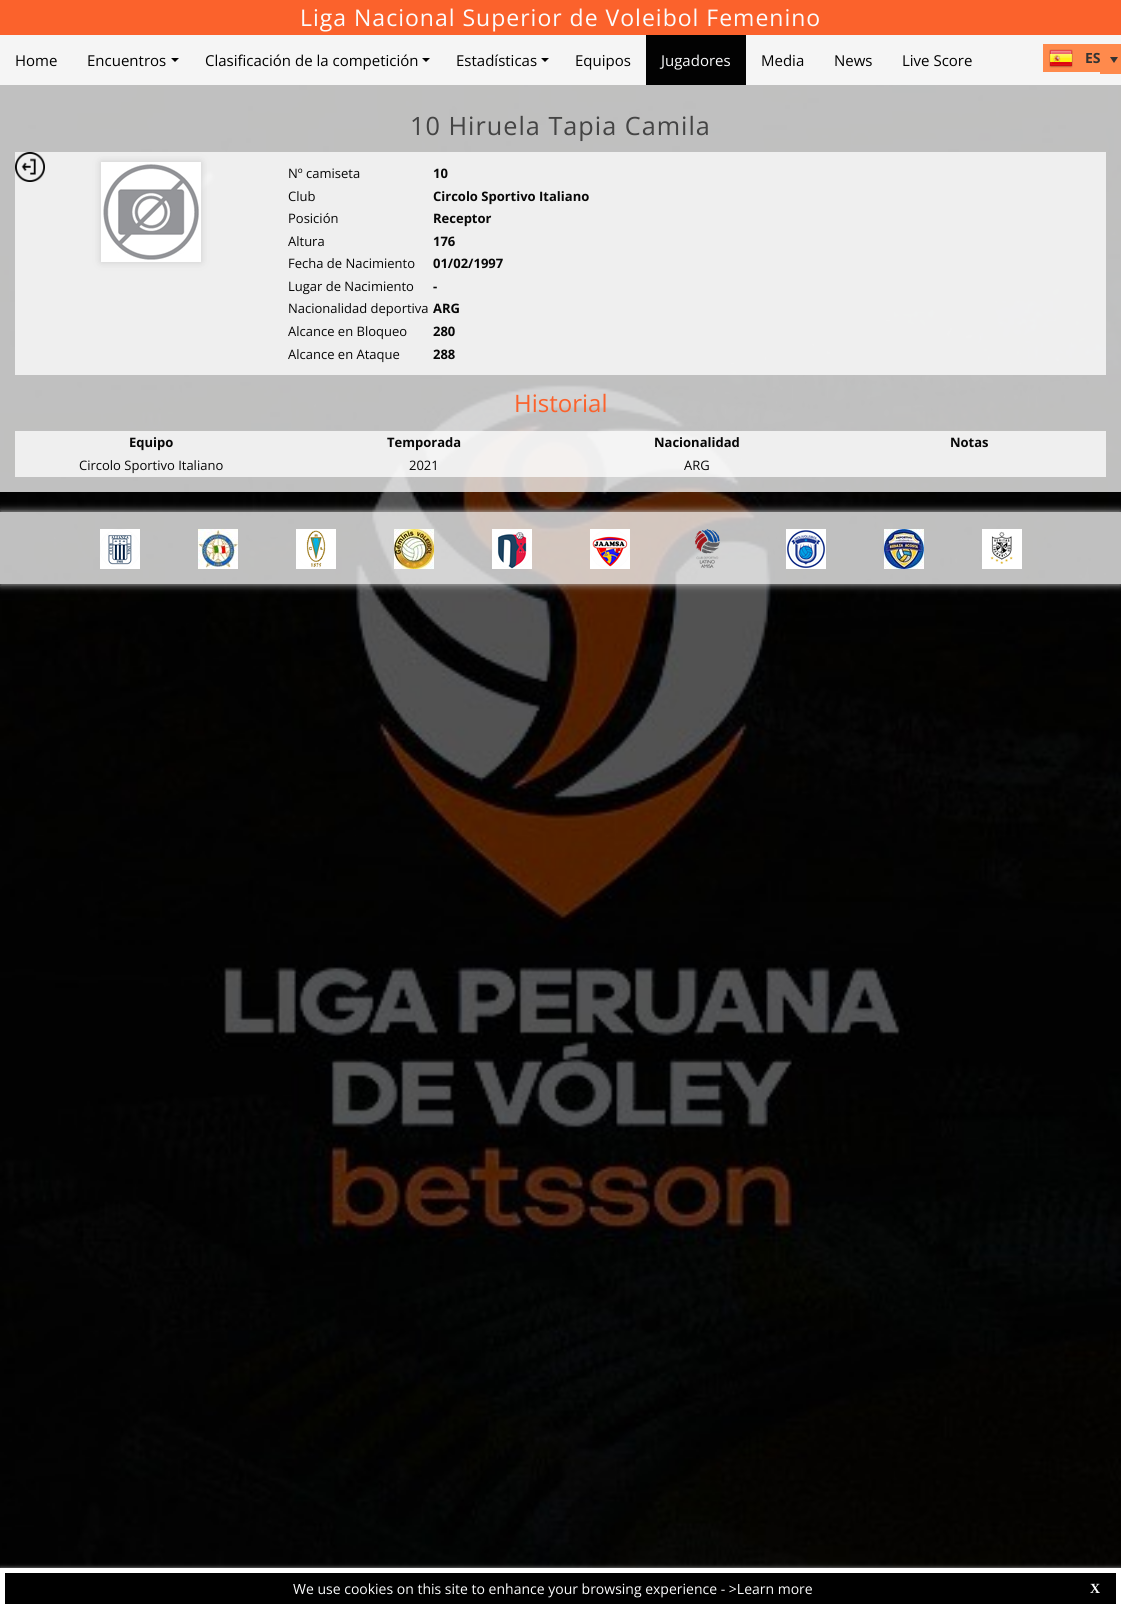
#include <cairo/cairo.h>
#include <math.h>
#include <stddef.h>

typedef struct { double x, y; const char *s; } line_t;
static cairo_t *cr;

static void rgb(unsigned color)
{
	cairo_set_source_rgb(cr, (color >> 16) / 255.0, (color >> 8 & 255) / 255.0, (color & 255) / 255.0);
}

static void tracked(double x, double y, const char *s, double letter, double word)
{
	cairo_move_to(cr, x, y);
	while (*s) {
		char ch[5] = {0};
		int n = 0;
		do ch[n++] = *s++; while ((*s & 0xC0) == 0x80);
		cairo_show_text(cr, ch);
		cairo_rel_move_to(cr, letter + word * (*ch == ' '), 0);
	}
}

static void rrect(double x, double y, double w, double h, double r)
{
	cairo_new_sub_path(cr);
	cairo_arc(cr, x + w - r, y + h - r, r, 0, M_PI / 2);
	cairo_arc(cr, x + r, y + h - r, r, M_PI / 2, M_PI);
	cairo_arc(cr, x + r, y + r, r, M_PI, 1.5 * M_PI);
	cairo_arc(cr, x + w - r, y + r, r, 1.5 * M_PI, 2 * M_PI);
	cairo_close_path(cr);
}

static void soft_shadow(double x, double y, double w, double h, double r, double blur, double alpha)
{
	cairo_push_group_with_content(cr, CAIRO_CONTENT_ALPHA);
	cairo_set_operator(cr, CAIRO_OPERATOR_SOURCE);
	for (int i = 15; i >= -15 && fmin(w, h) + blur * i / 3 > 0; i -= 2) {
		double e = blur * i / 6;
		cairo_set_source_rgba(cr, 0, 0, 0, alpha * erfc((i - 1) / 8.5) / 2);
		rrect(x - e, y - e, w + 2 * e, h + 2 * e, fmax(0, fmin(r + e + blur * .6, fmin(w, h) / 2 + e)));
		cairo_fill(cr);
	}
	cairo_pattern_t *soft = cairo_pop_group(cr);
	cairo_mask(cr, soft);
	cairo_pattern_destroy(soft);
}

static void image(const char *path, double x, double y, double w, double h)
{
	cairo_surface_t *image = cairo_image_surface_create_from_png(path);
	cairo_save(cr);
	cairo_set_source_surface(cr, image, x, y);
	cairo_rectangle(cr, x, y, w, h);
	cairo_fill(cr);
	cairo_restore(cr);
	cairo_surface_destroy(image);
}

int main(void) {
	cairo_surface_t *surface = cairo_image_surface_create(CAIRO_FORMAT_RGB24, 1121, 1609);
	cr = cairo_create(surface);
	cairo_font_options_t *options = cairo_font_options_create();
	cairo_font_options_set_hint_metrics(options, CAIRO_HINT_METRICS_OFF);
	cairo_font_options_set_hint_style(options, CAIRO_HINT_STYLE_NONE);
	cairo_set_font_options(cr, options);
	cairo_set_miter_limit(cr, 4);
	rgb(0xffffff);
	cairo_paint(cr);
	image("img/1.png", 0, 85, 1121, 1483);
	rgb(0xfb622c);
	cairo_rectangle(cr, 0, 0, 1121, 35);
	cairo_fill(cr);
	rgb(0xf5f5f5);
	cairo_rectangle(cr, 0, 35, 1121, 50);
	cairo_fill(cr);
	rgb(0x000000);
	cairo_new_path(cr);
	cairo_move_to(cr, 171, 58);
	cairo_line_to(cr, 179, 58);
	cairo_line_to(cr, 175, 62);
	cairo_close_path(cr);
	cairo_fill(cr);
	cairo_new_path(cr);
	cairo_move_to(cr, 422, 58);
	cairo_line_to(cr, 430, 58);
	cairo_line_to(cr, 426, 62);
	cairo_close_path(cr);
	cairo_fill(cr);
	cairo_new_path(cr);
	cairo_move_to(cr, 541, 58);
	cairo_line_to(cr, 549, 58);
	cairo_line_to(cr, 545, 62);
	cairo_close_path(cr);
	cairo_fill(cr);
	rgb(0x020202);
	cairo_rectangle(cr, 646, 35, 100, 50);
	cairo_fill(cr);
	rgb(0xff8a4c);
	cairo_rectangle(cr, 1043, 44, 78, 28);
	cairo_fill(cr);
	image("img/2.png", 1049, 49, 24, 19);
	cairo_rectangle(cr, 1100, 72, 21, 2);
	cairo_fill(cr);
	rgb(0x333333);
	cairo_new_path(cr);
	cairo_move_to(cr, 1114, 63);
	cairo_line_to(cr, 1110, 57);
	cairo_line_to(cr, 1118, 57);
	cairo_close_path(cr);
	cairo_fill(cr);
	cairo_set_source_rgba(cr, 1, 1, 1, 0.75);
	cairo_rectangle(cr, 0, 85, 1121, 407);
	cairo_fill(cr);
	cairo_rectangle(cr, 15, 152, 1091, 223);
	cairo_fill(cr);
	image("img/3.png", 15, 152, 30, 30);
	rgb(0xcccccc);
	soft_shadow(101, 162, 100, 100, 0, 4, 1);
	image("img/4.png", 101, 162, 100, 100);
	cairo_set_source_rgba(cr, 1, 1, 1, 0.75);
	cairo_rectangle(cr, 15, 431, 1091, 46);
	cairo_fill(cr);
	cairo_save(cr);
	cairo_set_fill_rule(cr, CAIRO_FILL_RULE_EVEN_ODD);
	cairo_new_path(cr);
	cairo_move_to(cr, 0, 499);
	cairo_line_to(cr, 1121, 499);
	cairo_line_to(cr, 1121, 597);
	cairo_line_to(cr, 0, 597);
	cairo_close_path(cr);
	cairo_move_to(cr, 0, 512);
	cairo_line_to(cr, 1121, 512);
	cairo_line_to(cr, 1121, 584);
	cairo_line_to(cr, 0, 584);
	cairo_close_path(cr);
	cairo_clip(cr);
	rgb(0xcccccc);
	soft_shadow(0, 512, 1121, 72, 0, 4, 1);
	cairo_restore(cr);
	cairo_rectangle(cr, 0, 512, 1121, 72);
	cairo_fill(cr);
	image("img/5.png", 100, 529, 40, 40);
	image("img/6.png", 198, 529, 40, 40);
	image("img/7.png", 296, 529, 40, 40);
	image("img/8.png", 394, 529, 40, 40);
	image("img/9.png", 492, 529, 40, 40);
	image("img/10.png", 590, 529, 40, 40);
	image("img/11.png", 695, 529, 25, 40);
	image("img/12.png", 786, 529, 40, 40);
	image("img/13.png", 884, 529, 40, 40);
	image("img/14.png", 982, 529, 40, 40);
	rgb(0x999999);
	soft_shadow(0, 1568, 1121, 40, 0, 2, 1);
	rgb(0x000000);
	cairo_rectangle(cr, 2.5, 1570.5, 1116, 36);
	cairo_fill_preserve(cr);
	rgb(0xffffff);
	cairo_set_line_width(cr, 5);
	cairo_stroke(cr);
	cairo_select_font_face(cr, "Open Sans", CAIRO_FONT_SLANT_NORMAL, CAIRO_FONT_WEIGHT_NORMAL);
	cairo_set_font_size(cr, 23);
	rgb(0xfbfcfd);
	tracked(300, 26, "Liga Nacional Superior de Voleibol Femenino", 1, 0);
	cairo_set_font_size(cr, 15);
	rgb(0x000000);
	{
		static const line_t items[] = {
			{15, 66, "Home"},
			{87, 66, "Encuentros"},
			{205, 66, "Clasificación de la competición"},
			{456, 66, "Estadísticas"},
			{575, 66, "Equipos"},
		};
		for (size_t i = 0; i < sizeof items / sizeof *items; i++) {
			cairo_move_to(cr, items[i].x, items[i].y);
			cairo_show_text(cr, items[i].s);
		}
	}
	rgb(0xfbfcfd);
	cairo_move_to(cr, 661, 66);
	cairo_show_text(cr, "Jugadores");
	rgb(0x000000);
	{
		static const line_t items[] = {
			{761, 66, "Media"},
			{834, 66, "News"},
			{902, 66, "Live Score"},
		};
		for (size_t i = 0; i < sizeof items / sizeof *items; i++) {
			cairo_move_to(cr, items[i].x, items[i].y);
			cairo_show_text(cr, items[i].s);
		}
	}
	cairo_select_font_face(cr, "Open Sans", CAIRO_FONT_SLANT_NORMAL, CAIRO_FONT_WEIGHT_BOLD);
	cairo_set_font_size(cr, 14);
	rgb(0x333333);
	cairo_move_to(cr, 1085, 63);
	cairo_show_text(cr, "ES");
	cairo_select_font_face(cr, "Open Sans", CAIRO_FONT_SLANT_NORMAL, CAIRO_FONT_WEIGHT_NORMAL);
	cairo_set_font_size(cr, 25.25);
	rgb(0x444444);
	tracked(410, 135, "10 Hiruela Tapia Camila", 1, 0);
	cairo_set_font_size(cr, 13);
	rgb(0x070707);
	cairo_move_to(cr, 288, 178);
	cairo_show_text(cr, "Nº camiseta");
	cairo_select_font_face(cr, "Open Sans", CAIRO_FONT_SLANT_NORMAL, CAIRO_FONT_WEIGHT_BOLD);
	cairo_move_to(cr, 433, 178);
	cairo_show_text(cr, "10");
	cairo_select_font_face(cr, "Open Sans", CAIRO_FONT_SLANT_NORMAL, CAIRO_FONT_WEIGHT_NORMAL);
	cairo_move_to(cr, 288, 201);
	cairo_show_text(cr, "Club");
	cairo_select_font_face(cr, "Open Sans", CAIRO_FONT_SLANT_NORMAL, CAIRO_FONT_WEIGHT_BOLD);
	cairo_move_to(cr, 433, 201);
	cairo_show_text(cr, "Circolo Sportivo Italiano");
	cairo_select_font_face(cr, "Open Sans", CAIRO_FONT_SLANT_NORMAL, CAIRO_FONT_WEIGHT_NORMAL);
	cairo_move_to(cr, 288, 223);
	cairo_show_text(cr, "Posición");
	cairo_select_font_face(cr, "Open Sans", CAIRO_FONT_SLANT_NORMAL, CAIRO_FONT_WEIGHT_BOLD);
	cairo_move_to(cr, 433, 223);
	cairo_show_text(cr, "Receptor");
	cairo_select_font_face(cr, "Open Sans", CAIRO_FONT_SLANT_NORMAL, CAIRO_FONT_WEIGHT_NORMAL);
	cairo_move_to(cr, 288, 246);
	cairo_show_text(cr, "Altura");
	cairo_select_font_face(cr, "Open Sans", CAIRO_FONT_SLANT_NORMAL, CAIRO_FONT_WEIGHT_BOLD);
	cairo_move_to(cr, 433, 246);
	cairo_show_text(cr, "176");
	cairo_select_font_face(cr, "Open Sans", CAIRO_FONT_SLANT_NORMAL, CAIRO_FONT_WEIGHT_NORMAL);
	cairo_move_to(cr, 288, 268);
	cairo_show_text(cr, "Fecha de Nacimiento");
	cairo_select_font_face(cr, "Open Sans", CAIRO_FONT_SLANT_NORMAL, CAIRO_FONT_WEIGHT_BOLD);
	cairo_move_to(cr, 433, 268);
	cairo_show_text(cr, "01/02/1997");
	cairo_select_font_face(cr, "Open Sans", CAIRO_FONT_SLANT_NORMAL, CAIRO_FONT_WEIGHT_NORMAL);
	cairo_move_to(cr, 288, 291);
	cairo_show_text(cr, "Lugar de Nacimiento");
	cairo_select_font_face(cr, "Open Sans", CAIRO_FONT_SLANT_NORMAL, CAIRO_FONT_WEIGHT_BOLD);
	cairo_move_to(cr, 433, 291);
	cairo_show_text(cr, "-");
	cairo_select_font_face(cr, "Open Sans", CAIRO_FONT_SLANT_NORMAL, CAIRO_FONT_WEIGHT_NORMAL);
	cairo_move_to(cr, 288, 313);
	cairo_show_text(cr, "Nacionalidad deportiva");
	cairo_select_font_face(cr, "Open Sans", CAIRO_FONT_SLANT_NORMAL, CAIRO_FONT_WEIGHT_BOLD);
	cairo_move_to(cr, 433, 313);
	cairo_show_text(cr, "ARG");
	cairo_select_font_face(cr, "Open Sans", CAIRO_FONT_SLANT_NORMAL, CAIRO_FONT_WEIGHT_NORMAL);
	cairo_move_to(cr, 288, 336);
	cairo_show_text(cr, "Alcance en Bloqueo");
	cairo_select_font_face(cr, "Open Sans", CAIRO_FONT_SLANT_NORMAL, CAIRO_FONT_WEIGHT_BOLD);
	cairo_move_to(cr, 433, 336);
	cairo_show_text(cr, "280");
	cairo_select_font_face(cr, "Open Sans", CAIRO_FONT_SLANT_NORMAL, CAIRO_FONT_WEIGHT_NORMAL);
	cairo_move_to(cr, 288, 359);
	cairo_show_text(cr, "Alcance en Ataque");
	cairo_select_font_face(cr, "Open Sans", CAIRO_FONT_SLANT_NORMAL, CAIRO_FONT_WEIGHT_BOLD);
	cairo_move_to(cr, 433, 359);
	cairo_show_text(cr, "288");
	cairo_select_font_face(cr, "Open Sans", CAIRO_FONT_SLANT_NORMAL, CAIRO_FONT_WEIGHT_NORMAL);
	cairo_set_font_size(cr, 24);
	rgb(0xfb622c);
	cairo_move_to(cr, 514, 412);
	cairo_show_text(cr, "Historial");
	cairo_select_font_face(cr, "Open Sans", CAIRO_FONT_SLANT_NORMAL, CAIRO_FONT_WEIGHT_BOLD);
	cairo_set_font_size(cr, 13);
	rgb(0x070707);
	{
		static const line_t items[] = {
			{129, 447, "Equipo"},
			{387, 447, "Temporada"},
			{654, 447, "Nacionalidad"},
			{950, 447, "Notas"},
		};
		for (size_t i = 0; i < sizeof items / sizeof *items; i++) {
			cairo_move_to(cr, items[i].x, items[i].y);
			cairo_show_text(cr, items[i].s);
		}
	}
	cairo_select_font_face(cr, "Open Sans", CAIRO_FONT_SLANT_NORMAL, CAIRO_FONT_WEIGHT_NORMAL);
	{
		static const line_t items[] = {
			{79, 470, "Circolo Sportivo Italiano"},
			{409, 470, "2021"},
			{684, 470, "ARG"},
		};
		for (size_t i = 0; i < sizeof items / sizeof *items; i++) {
			cairo_move_to(cr, items[i].x, items[i].y);
			cairo_show_text(cr, items[i].s);
		}
	}
	cairo_set_font_size(cr, 14);
	rgb(0xfbfcfd);
	cairo_move_to(cr, 293, 1594);
	cairo_show_text(cr, "We use cookies on this site to enhance your browsing experience - >Learn more");
	cairo_select_font_face(cr, "Liberation Serif", CAIRO_FONT_SLANT_NORMAL, CAIRO_FONT_WEIGHT_BOLD);
	cairo_move_to(cr, 1090, 1593);
	cairo_show_text(cr, "X");
	cairo_surface_write_to_png(surface, "page.png");
	cairo_font_options_destroy(options);
	cairo_destroy(cr);
	cairo_surface_destroy(surface);
	return 0;
}
